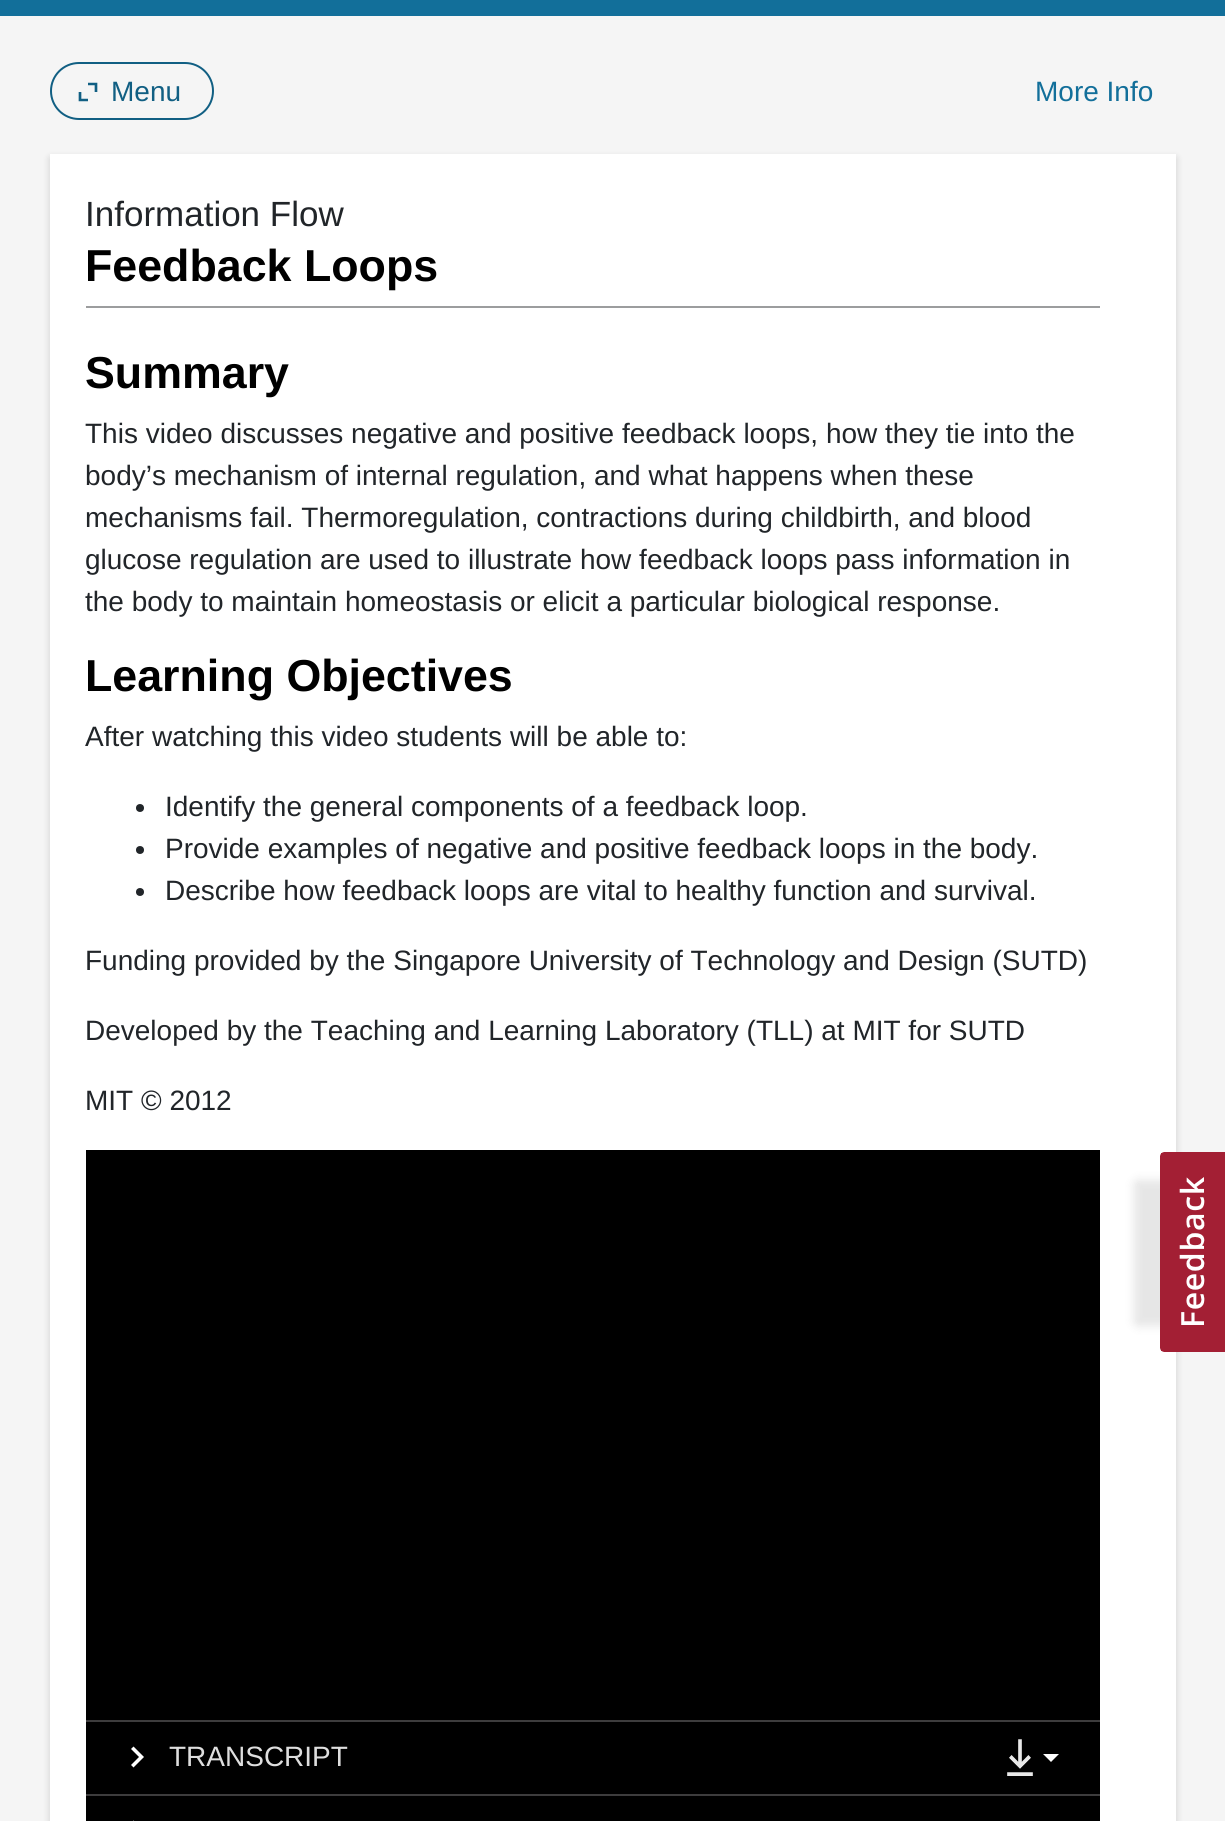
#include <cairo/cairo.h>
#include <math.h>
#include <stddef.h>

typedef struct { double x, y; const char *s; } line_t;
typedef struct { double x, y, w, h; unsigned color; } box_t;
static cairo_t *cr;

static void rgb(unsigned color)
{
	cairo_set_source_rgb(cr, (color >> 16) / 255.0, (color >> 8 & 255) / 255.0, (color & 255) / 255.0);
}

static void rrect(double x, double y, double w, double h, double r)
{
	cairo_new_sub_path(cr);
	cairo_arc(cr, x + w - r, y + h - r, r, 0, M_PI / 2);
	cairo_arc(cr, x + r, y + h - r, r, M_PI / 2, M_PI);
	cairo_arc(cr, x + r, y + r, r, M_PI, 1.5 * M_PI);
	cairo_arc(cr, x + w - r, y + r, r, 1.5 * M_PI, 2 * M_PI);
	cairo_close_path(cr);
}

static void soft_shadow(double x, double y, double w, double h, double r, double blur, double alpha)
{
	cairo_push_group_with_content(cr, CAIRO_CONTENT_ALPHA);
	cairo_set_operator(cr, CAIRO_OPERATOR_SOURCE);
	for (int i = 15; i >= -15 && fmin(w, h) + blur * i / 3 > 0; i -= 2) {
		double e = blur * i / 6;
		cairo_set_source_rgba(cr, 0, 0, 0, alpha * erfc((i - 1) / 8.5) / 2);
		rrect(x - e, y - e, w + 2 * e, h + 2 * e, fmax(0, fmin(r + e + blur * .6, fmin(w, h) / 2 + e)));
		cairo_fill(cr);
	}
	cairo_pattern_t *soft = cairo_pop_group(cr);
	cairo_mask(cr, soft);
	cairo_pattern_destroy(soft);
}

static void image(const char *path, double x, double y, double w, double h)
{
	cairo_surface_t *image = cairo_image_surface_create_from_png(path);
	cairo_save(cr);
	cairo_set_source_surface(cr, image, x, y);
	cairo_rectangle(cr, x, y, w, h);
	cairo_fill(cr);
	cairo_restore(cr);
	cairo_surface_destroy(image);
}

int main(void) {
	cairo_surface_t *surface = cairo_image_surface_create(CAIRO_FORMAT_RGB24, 1225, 1821);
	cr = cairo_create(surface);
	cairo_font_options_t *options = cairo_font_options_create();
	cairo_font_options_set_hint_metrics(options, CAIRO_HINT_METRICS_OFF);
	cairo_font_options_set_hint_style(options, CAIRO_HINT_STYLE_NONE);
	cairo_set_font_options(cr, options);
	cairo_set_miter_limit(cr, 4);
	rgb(0xf5f5f5);
	cairo_paint(cr);
	rgb(0x126f9a);
	cairo_rectangle(cr, 0, 0, 1225, 16);
	cairo_fill(cr);
	rrect(51, 63, 162, 56, 28);
	rgb(0x115f83);
	cairo_stroke(cr);
	image("img/1.png", 78, 82, 20, 20);
	rgb(0x000000);
	soft_shadow(50, 158, 1126, 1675, 0, 4, 0.16);
	rgb(0xffffff);
	cairo_rectangle(cr, 50, 154, 1126, 1667);
	cairo_fill(cr);
	rgb(0x9c9d9e);
	cairo_rectangle(cr, 86, 306, 1014, 2);
	cairo_fill(cr);
	rgb(0x212529);
	cairo_arc(cr, 140, 808, 4, 0, 2 * M_PI);
	cairo_fill(cr);
	cairo_arc(cr, 140, 850, 4, 0, 2 * M_PI);
	cairo_fill(cr);
	cairo_arc(cr, 140, 892, 4, 0, 2 * M_PI);
	cairo_fill(cr);
	{
		static const box_t items[] = {
			{86, 1150, 1014, 570, 0x000000},
			{86, 1722, 1014, 72, 0x000000},
			{86, 1720, 1014, 2, 0x3d3c3d},
		};
		for (size_t i = 0; i < sizeof items / sizeof *items; i++) {
			rgb(items[i].color);
			cairo_rectangle(cr, items[i].x, items[i].y, items[i].w, items[i].h);
			cairo_fill(cr);
		}
	}
	rgb(0xffffff);
	cairo_new_path(cr);
	cairo_move_to(cr, 131, 1765);
	cairo_line_to(cr, 139, 1757);
	cairo_line_to(cr, 131, 1749);
	cairo_line_to(cr, 133.5, 1746.5);
	cairo_line_to(cr, 144, 1757);
	cairo_line_to(cr, 133.5, 1767.5);
	cairo_close_path(cr);
	cairo_fill(cr);
	image("img/2.png", 1007, 1739, 26, 37);
	cairo_new_path(cr);
	cairo_move_to(cr, 1043, 1754);
	cairo_line_to(cr, 1059, 1754);
	cairo_line_to(cr, 1051, 1762);
	cairo_close_path(cr);
	cairo_fill(cr);
	{
		static const box_t items[] = {
			{86, 1796, 1014, 25, 0x000000},
			{86, 1794, 1014, 2, 0x3d3c3d},
			{133, 1820, 1, 1, 0x404040},
		};
		for (size_t i = 0; i < sizeof items / sizeof *items; i++) {
			rgb(items[i].color);
			cairo_rectangle(cr, items[i].x, items[i].y, items[i].w, items[i].h);
			cairo_fill(cr);
		}
	}
	rgb(0x000000);
	soft_shadow(1134, 1180, 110, 146, 4, 5, 0.1);
	image("img/3.png", 1160, 1152, 65, 200);
	cairo_select_font_face(cr, "Liberation Sans", CAIRO_FONT_SLANT_NORMAL, CAIRO_FONT_WEIGHT_NORMAL);
	cairo_set_font_size(cr, 28);
	rgb(0x115f83);
	cairo_move_to(cr, 111, 101);
	cairo_show_text(cr, "Menu");
	rgb(0x126f9a);
	cairo_move_to(cr, 1035, 101);
	cairo_show_text(cr, "More Info");
	cairo_set_font_size(cr, 35);
	rgb(0x212529);
	cairo_move_to(cr, 85, 226);
	cairo_show_text(cr, "Information Flow");
	cairo_select_font_face(cr, "Liberation Sans", CAIRO_FONT_SLANT_NORMAL, CAIRO_FONT_WEIGHT_BOLD);
	cairo_set_font_size(cr, 44.75);
	rgb(0x000000);
	cairo_move_to(cr, 85, 281);
	cairo_show_text(cr, "Feedback Loops");
	cairo_move_to(cr, 85, 388);
	cairo_show_text(cr, "Summary");
	cairo_select_font_face(cr, "Liberation Sans", CAIRO_FONT_SLANT_NORMAL, CAIRO_FONT_WEIGHT_NORMAL);
	cairo_set_font_size(cr, 28);
	rgb(0x212529);
	{
		static const line_t items[] = {
			{85, 443, "This video discusses negative and positive feedback loops, how they tie into the"},
			{85, 485, "body’s mechanism of internal regulation, and what happens when these"},
			{85, 527, "mechanisms fail. Thermoregulation, contractions during childbirth, and blood"},
			{85, 569, "glucose regulation are used to illustrate how feedback loops pass information in"},
			{85, 611, "the body to maintain homeostasis or elicit a particular biological response."},
		};
		for (size_t i = 0; i < sizeof items / sizeof *items; i++) {
			cairo_move_to(cr, items[i].x, items[i].y);
			cairo_show_text(cr, items[i].s);
		}
	}
	cairo_select_font_face(cr, "Liberation Sans", CAIRO_FONT_SLANT_NORMAL, CAIRO_FONT_WEIGHT_BOLD);
	cairo_set_font_size(cr, 44.75);
	rgb(0x000000);
	cairo_move_to(cr, 85, 691);
	cairo_show_text(cr, "Learning Objectives");
	cairo_select_font_face(cr, "Liberation Sans", CAIRO_FONT_SLANT_NORMAL, CAIRO_FONT_WEIGHT_NORMAL);
	cairo_set_font_size(cr, 28);
	rgb(0x212529);
	{
		static const line_t items[] = {
			{85, 746, "After watching this video students will be able to:"},
			{165, 816, "Identify the general components of a feedback loop."},
			{165, 858, "Provide examples of negative and positive feedback loops in the body."},
			{165, 900, "Describe how feedback loops are vital to healthy function and survival."},
			{85, 970, "Funding provided by the Singapore University of Technology and Design (SUTD)"},
			{85, 1040, "Developed by the Teaching and Learning Laboratory (TLL) at MIT for SUTD"},
			{85, 1110, "MIT © 2012"},
		};
		for (size_t i = 0; i < sizeof items / sizeof *items; i++) {
			cairo_move_to(cr, items[i].x, items[i].y);
			cairo_show_text(cr, items[i].s);
		}
	}
	rgb(0xdedede);
	cairo_move_to(cr, 169, 1766);
	cairo_show_text(cr, "TRANSCRIPT");
	cairo_surface_write_to_png(surface, "page.png");
	cairo_font_options_destroy(options);
	cairo_destroy(cr);
	cairo_surface_destroy(surface);
	return 0;
}
